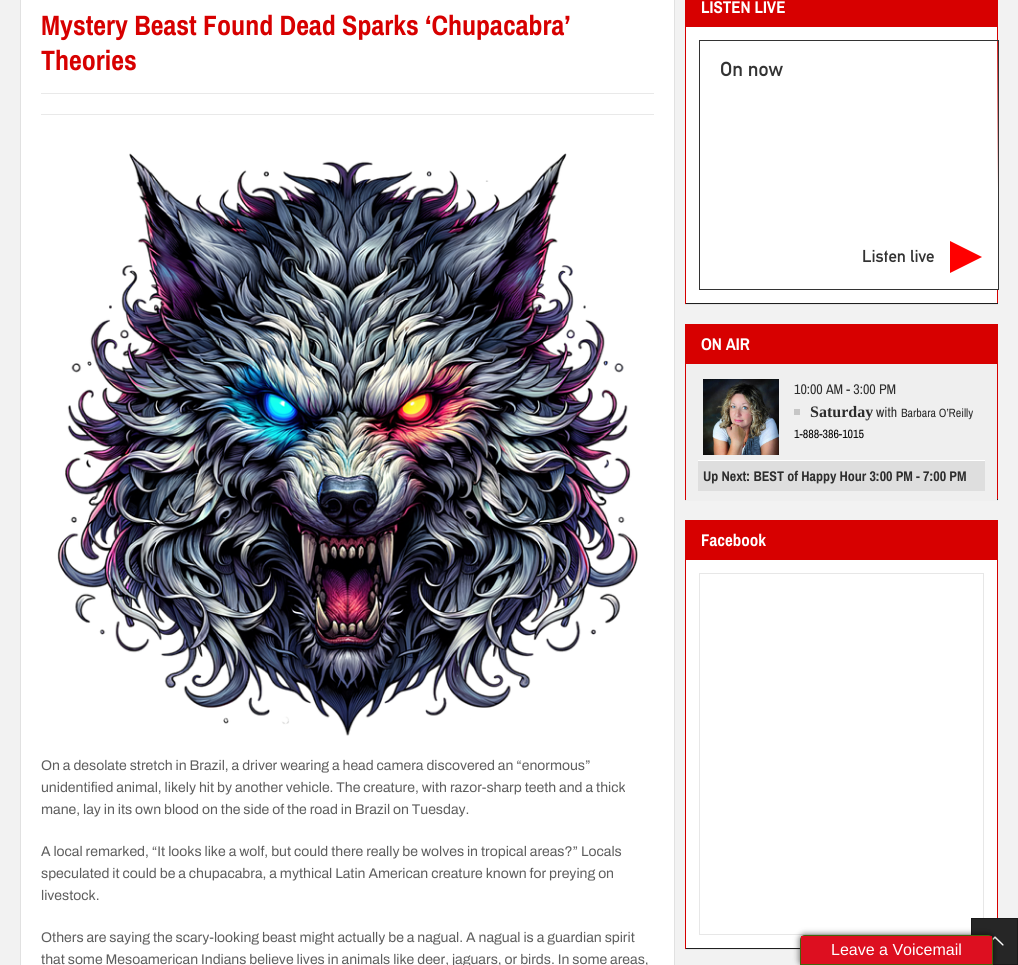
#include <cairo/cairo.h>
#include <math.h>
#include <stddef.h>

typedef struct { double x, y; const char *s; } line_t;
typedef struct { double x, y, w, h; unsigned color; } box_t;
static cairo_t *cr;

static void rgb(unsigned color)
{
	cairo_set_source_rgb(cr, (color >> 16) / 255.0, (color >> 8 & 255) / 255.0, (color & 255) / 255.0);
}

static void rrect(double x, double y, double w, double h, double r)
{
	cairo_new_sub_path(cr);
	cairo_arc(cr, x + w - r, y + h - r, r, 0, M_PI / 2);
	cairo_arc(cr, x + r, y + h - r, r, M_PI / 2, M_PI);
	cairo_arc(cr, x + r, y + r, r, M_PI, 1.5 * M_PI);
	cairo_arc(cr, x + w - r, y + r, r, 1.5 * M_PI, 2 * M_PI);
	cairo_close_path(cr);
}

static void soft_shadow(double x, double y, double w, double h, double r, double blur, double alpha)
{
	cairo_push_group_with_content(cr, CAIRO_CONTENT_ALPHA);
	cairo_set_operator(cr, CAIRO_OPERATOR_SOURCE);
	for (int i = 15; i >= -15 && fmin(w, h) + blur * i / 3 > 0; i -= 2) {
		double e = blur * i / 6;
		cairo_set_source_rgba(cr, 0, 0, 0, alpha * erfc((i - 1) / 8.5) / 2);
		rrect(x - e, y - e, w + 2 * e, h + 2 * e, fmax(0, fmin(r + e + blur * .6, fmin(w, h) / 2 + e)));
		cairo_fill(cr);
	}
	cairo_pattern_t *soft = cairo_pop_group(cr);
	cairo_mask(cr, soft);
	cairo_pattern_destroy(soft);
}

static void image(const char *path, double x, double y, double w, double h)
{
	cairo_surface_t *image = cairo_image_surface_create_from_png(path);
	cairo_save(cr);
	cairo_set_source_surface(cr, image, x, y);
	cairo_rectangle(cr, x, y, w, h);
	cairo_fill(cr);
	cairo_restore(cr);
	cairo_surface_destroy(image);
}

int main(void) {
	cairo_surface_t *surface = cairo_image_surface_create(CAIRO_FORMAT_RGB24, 1018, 965);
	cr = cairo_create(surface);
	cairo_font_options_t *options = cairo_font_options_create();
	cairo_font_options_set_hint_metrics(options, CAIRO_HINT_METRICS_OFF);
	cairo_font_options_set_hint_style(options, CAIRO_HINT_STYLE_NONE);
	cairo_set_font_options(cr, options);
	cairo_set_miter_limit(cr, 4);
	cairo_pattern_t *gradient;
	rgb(0xf2f2f2);
	cairo_paint(cr);
	{
		static const box_t items[] = {
			{21, 0, 653, 965, 0xffffff},
			{674, 0, 1, 965, 0xe1e1e1},
			{20, 0, 1, 965, 0xe1e1e1},
			{41, 93, 613, 1, 0xe9e9e9},
			{41, 114, 613, 1, 0xe9e9e9},
		};
		for (size_t i = 0; i < sizeof items / sizeof *items; i++) {
			rgb(items[i].color);
			cairo_rectangle(cr, items[i].x, items[i].y, items[i].w, items[i].h);
			cairo_fill(cr);
		}
	}
	image("img/1.png", 57, 153, 581, 583);
	{
		static const box_t items[] = {
			{685, 304, 313, 1, 0xe5e5e5},
			{686, 27, 311, 276, 0xffffff},
			{997, 27, 1, 277, 0xd70000},
			{685, 303, 313, 1, 0x1f1f1f},
			{685, 27, 1, 277, 0xd70000},
			{685, 0, 313, 27, 0xd70000},
		};
		for (size_t i = 0; i < sizeof items / sizeof *items; i++) {
			rgb(items[i].color);
			cairo_rectangle(cr, items[i].x, items[i].y, items[i].w, items[i].h);
			cairo_fill(cr);
		}
	}
	cairo_rectangle(cr, 699.5, 40.5, 299, 249);
	rgb(0x333333);
	cairo_set_line_width(cr, 1);
	cairo_stroke(cr);
	gradient = cairo_pattern_create_linear(849, 19, 849, 189);
	cairo_pattern_add_color_stop_rgba(gradient, 0, 1, 1, 1, 0);
	cairo_pattern_add_color_stop_rgba(gradient, 1, 1, 1, 1, 1);
	cairo_set_source(cr, gradient);
	cairo_pattern_destroy(gradient);
	cairo_rectangle(cr, 997, 41, 1, 148);
	cairo_fill(cr);
	rgb(0xff0000);
	cairo_new_path(cr);
	cairo_move_to(cr, 950, 273);
	cairo_line_to(cr, 950, 241);
	cairo_line_to(cr, 982, 257);
	cairo_close_path(cr);
	cairo_fill(cr);
	{
		static const box_t items[] = {
			{997, 189, 1, 100, 0xffffff},
			{685, 500, 313, 1, 0xe5e5e5},
			{997, 364, 1, 136, 0xd70000},
			{997, 499, 1, 1, 0x1f1f1f},
			{685, 364, 1, 136, 0xd70000},
			{685, 324, 313, 40, 0xd70000},
			{686, 364, 311, 137, 0xefefef},
		};
		for (size_t i = 0; i < sizeof items / sizeof *items; i++) {
			rgb(items[i].color);
			cairo_rectangle(cr, items[i].x, items[i].y, items[i].w, items[i].h);
			cairo_fill(cr);
		}
	}
	image("img/2.png", 703, 379, 76, 76);
	{
		static const box_t items[] = {
			{794, 409, 6, 6, 0xc6c6c6},
			{698, 461, 287, 30, 0xdedede},
			{698, 460, 287, 1, 0xffffff},
			{685, 949, 115, 1, 0xe5e5e5},
			{686, 560, 311, 388, 0xffffff},
			{997, 560, 1, 358, 0xd70000},
			{685, 948, 115, 1, 0x1f1f1f},
			{685, 560, 1, 389, 0xd70000},
			{685, 520, 313, 40, 0xd70000},
		};
		for (size_t i = 0; i < sizeof items / sizeof *items; i++) {
			rgb(items[i].color);
			cairo_rectangle(cr, items[i].x, items[i].y, items[i].w, items[i].h);
			cairo_fill(cr);
		}
	}
	cairo_rectangle(cr, 699.5, 573.5, 284, 361);
	rgb(0xe7e7e7);
	cairo_stroke(cr);
	rgb(0x262626);
	cairo_rectangle(cr, 971.5, 918.5, 46, 46);
	cairo_fill_preserve(cr);
	rgb(0x1a1a1a);
	cairo_stroke(cr);
	image("img/3.png", 992, 936, 12, 10);
	rgb(0x000000);
	soft_shadow(799, 934, 195, 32, 6, 3, 0.5);
	cairo_new_path(cr);
	cairo_move_to(cr, 805, 935.5);
	cairo_line_to(cr, 988, 935.5);
	cairo_curve_to(cr, 990.5, 935.5, 992.5, 937.5, 992.5, 940);
	cairo_line_to(cr, 992.5, 964.5);
	cairo_line_to(cr, 800.5, 964.5);
	cairo_line_to(cr, 800.5, 940);
	cairo_curve_to(cr, 800.5, 937.5, 802.5, 935.5, 805, 935.5);
	cairo_close_path(cr);
	rgb(0x43660e);
	cairo_stroke(cr);
	rgb(0xdd0f20);
	cairo_rectangle(cr, 801, 936, 191, 28);
	cairo_fill(cr);
	cairo_select_font_face(cr, "Archivo Narrow", CAIRO_FONT_SLANT_NORMAL, CAIRO_FONT_WEIGHT_BOLD);
	cairo_set_font_size(cr, 28);
	rgb(0xd70000);
	cairo_move_to(cr, 41, 35);
	cairo_show_text(cr, "Mystery Beast Found Dead Sparks ‘Chupacabra’");
	cairo_move_to(cr, 41, 70);
	cairo_show_text(cr, "Theories");
	cairo_select_font_face(cr, "Archivo SemiBold", CAIRO_FONT_SLANT_NORMAL, CAIRO_FONT_WEIGHT_NORMAL);
	cairo_set_font_size(cr, 14);
	rgb(0x5e5e5e);
	{
		static const line_t items[] = {
			{41, 770, "On a desolate stretch in Brazil, a driver wearing a head camera discovered an “enormous”"},
			{41, 792, "unidentified animal, likely hit by another vehicle. The creature, with razor-sharp teeth and a thick"},
			{41, 814, "mane, lay in its own blood on the side of the road in Brazil on Tuesday."},
			{41, 856, "A local remarked, “It looks like a wolf, but could there really be wolves in tropical areas?” Locals"},
			{41, 878, "speculated it could be a chupacabra, a mythical Latin American creature known for preying on"},
			{41, 900, "livestock."},
			{41, 942, "Others are saying the scary-looking beast might actually be a nagual. A nagual is a guardian spirit"},
			{41, 964, "that some Mesoamerican Indians believe lives in animals like deer, jaguars, or birds. In some areas,"},
		};
		for (size_t i = 0; i < sizeof items / sizeof *items; i++) {
			cairo_move_to(cr, items[i].x, items[i].y);
			cairo_show_text(cr, items[i].s);
		}
	}
	cairo_select_font_face(cr, "Archivo Narrow", CAIRO_FONT_SLANT_NORMAL, CAIRO_FONT_WEIGHT_BOLD);
	cairo_set_font_size(cr, 17);
	rgb(0xffffff);
	cairo_move_to(cr, 701, 13);
	cairo_show_text(cr, "LISTEN LIVE");
	cairo_select_font_face(cr, "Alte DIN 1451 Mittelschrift", CAIRO_FONT_SLANT_NORMAL, CAIRO_FONT_WEIGHT_NORMAL);
	cairo_set_font_size(cr, 20);
	rgb(0x333333);
	cairo_move_to(cr, 720, 76);
	cairo_show_text(cr, "On now");
	cairo_set_font_size(cr, 17);
	cairo_move_to(cr, 862, 262);
	cairo_show_text(cr, "Listen live");
	cairo_select_font_face(cr, "Archivo Narrow", CAIRO_FONT_SLANT_NORMAL, CAIRO_FONT_WEIGHT_BOLD);
	rgb(0xffffff);
	cairo_move_to(cr, 701, 350);
	cairo_show_text(cr, "ON AIR");
	cairo_select_font_face(cr, "Archivo Narrow", CAIRO_FONT_SLANT_NORMAL, CAIRO_FONT_WEIGHT_NORMAL);
	cairo_set_font_size(cr, 14);
	rgb(0x2d2d2d);
	cairo_move_to(cr, 794, 394);
	cairo_show_text(cr, "10:00 AM - 3:00 PM");
	cairo_select_font_face(cr, "Liberation Serif", CAIRO_FONT_SLANT_NORMAL, CAIRO_FONT_WEIGHT_BOLD);
	cairo_set_font_size(cr, 16);
	cairo_move_to(cr, 810, 417);
	cairo_show_text(cr, "Saturday");
	cairo_select_font_face(cr, "Archivo Narrow", CAIRO_FONT_SLANT_NORMAL, CAIRO_FONT_WEIGHT_NORMAL);
	cairo_set_font_size(cr, 14);
	cairo_move_to(cr, 876, 417);
	cairo_show_text(cr, "with");
	cairo_set_font_size(cr, 12);
	cairo_move_to(cr, 901, 417);
	cairo_show_text(cr, "Barbara O’Reilly");
	rgb(0x000000);
	cairo_move_to(cr, 794, 438);
	cairo_show_text(cr, "1-888-386-1015");
	cairo_select_font_face(cr, "Archivo Narrow", CAIRO_FONT_SLANT_NORMAL, CAIRO_FONT_WEIGHT_BOLD);
	cairo_set_font_size(cr, 14);
	rgb(0x2d2d2d);
	cairo_move_to(cr, 703, 481);
	cairo_show_text(cr, "Up Next: BEST of Happy Hour 3:00 PM - 7:00 PM");
	cairo_set_font_size(cr, 17);
	rgb(0xffffff);
	cairo_move_to(cr, 701, 546);
	cairo_show_text(cr, "Facebook");
	cairo_select_font_face(cr, "Liberation Sans", CAIRO_FONT_SLANT_NORMAL, CAIRO_FONT_WEIGHT_NORMAL);
	cairo_set_font_size(cr, 16);
	cairo_move_to(cr, 831, 955);
	cairo_show_text(cr, "Leave a Voicemail");
	cairo_surface_write_to_png(surface, "page.png");
	cairo_font_options_destroy(options);
	cairo_destroy(cr);
	cairo_surface_destroy(surface);
	return 0;
}
